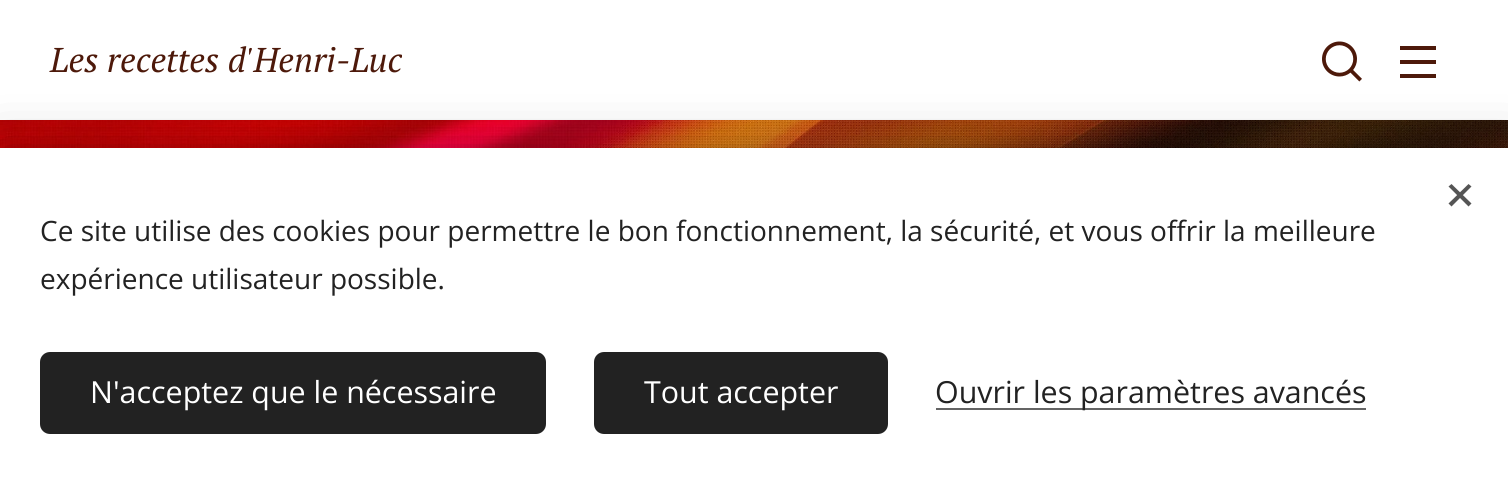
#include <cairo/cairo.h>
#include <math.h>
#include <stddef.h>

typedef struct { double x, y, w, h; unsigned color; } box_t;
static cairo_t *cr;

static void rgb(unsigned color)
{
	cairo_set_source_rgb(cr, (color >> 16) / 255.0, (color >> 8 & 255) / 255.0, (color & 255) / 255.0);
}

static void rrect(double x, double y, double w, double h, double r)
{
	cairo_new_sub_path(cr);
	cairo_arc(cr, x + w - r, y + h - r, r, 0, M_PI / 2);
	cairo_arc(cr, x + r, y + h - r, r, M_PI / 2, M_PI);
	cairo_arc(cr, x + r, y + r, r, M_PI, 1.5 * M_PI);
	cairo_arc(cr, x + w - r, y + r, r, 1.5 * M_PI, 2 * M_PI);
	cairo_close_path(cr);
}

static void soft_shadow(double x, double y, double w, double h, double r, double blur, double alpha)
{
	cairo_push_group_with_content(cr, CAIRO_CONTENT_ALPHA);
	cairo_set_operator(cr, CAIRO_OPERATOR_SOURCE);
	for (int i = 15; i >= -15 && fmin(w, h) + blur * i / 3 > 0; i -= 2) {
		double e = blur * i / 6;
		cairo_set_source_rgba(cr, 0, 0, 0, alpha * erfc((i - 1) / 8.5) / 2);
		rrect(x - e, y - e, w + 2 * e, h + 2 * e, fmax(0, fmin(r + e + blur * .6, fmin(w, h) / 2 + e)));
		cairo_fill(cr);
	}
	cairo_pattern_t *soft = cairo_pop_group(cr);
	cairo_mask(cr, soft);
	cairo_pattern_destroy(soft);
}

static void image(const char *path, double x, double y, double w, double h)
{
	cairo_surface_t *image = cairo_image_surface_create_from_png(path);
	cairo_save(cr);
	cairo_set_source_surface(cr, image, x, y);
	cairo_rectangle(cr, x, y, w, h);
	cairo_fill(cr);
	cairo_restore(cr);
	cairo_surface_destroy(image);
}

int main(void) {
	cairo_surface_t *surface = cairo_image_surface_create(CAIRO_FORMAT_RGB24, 1508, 502);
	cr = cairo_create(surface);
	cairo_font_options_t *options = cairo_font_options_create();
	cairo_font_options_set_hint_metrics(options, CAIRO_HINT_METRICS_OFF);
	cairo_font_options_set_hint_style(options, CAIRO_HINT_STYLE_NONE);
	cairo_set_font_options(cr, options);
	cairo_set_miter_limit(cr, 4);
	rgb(0xffffff);
	cairo_paint(cr);
	image("img/2.png", 0, 120, 1508, 28);
	rgb(0x000000);
	soft_shadow(0, 10, 1508, 120, 0, 15, 0.07);
	rgb(0xffffff);
	cairo_rectangle(cr, 0, 0, 1508, 120);
	cairo_fill(cr);
	image("img/1.png", 1322, 41, 40, 41);
	{
		static const box_t items[] = {
			{1400, 60, 36, 4, 0x4d190a},
			{1400, 46, 36, 4, 0x4d190a},
			{1400, 74, 36, 4, 0x4d190a},
		};
		for (size_t i = 0; i < sizeof items / sizeof *items; i++) {
			rgb(items[i].color);
			cairo_rectangle(cr, items[i].x, items[i].y, items[i].w, items[i].h);
			cairo_fill(cr);
		}
	}
	rgb(0x000000);
	soft_shadow(0, 148, 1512, 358, 0, 25, 0.33);
	rgb(0xffffff);
	cairo_rectangle(cr, 0, 148, 1508, 354);
	cairo_fill(cr);
	rgb(0x555555);
	cairo_new_path(cr);
	cairo_move_to(cr, 1448.5, 203.5);
	cairo_line_to(cr, 1468.5, 184);
	cairo_line_to(cr, 1471.5, 186.5);
	cairo_line_to(cr, 1451.5, 206.5);
	cairo_close_path(cr);
	cairo_fill(cr);
	cairo_new_path(cr);
	cairo_move_to(cr, 1451.5, 184);
	cairo_line_to(cr, 1471.5, 203.5);
	cairo_line_to(cr, 1468.5, 206.5);
	cairo_line_to(cr, 1448.5, 186.5);
	cairo_close_path(cr);
	cairo_fill(cr);
	rgb(0x222222);
	rrect(40, 352, 506, 82, 10);
	cairo_fill(cr);
	rrect(594, 352, 294, 82, 10);
	cairo_fill(cr);
	rgb(0x646464);
	cairo_rectangle(cr, 936, 408, 430, 2);
	cairo_fill(cr);
	cairo_select_font_face(cr, "PT Serif", CAIRO_FONT_SLANT_ITALIC, CAIRO_FONT_WEIGHT_NORMAL);
	cairo_set_font_size(cr, 34.4);
	rgb(0x4d190a);
	cairo_move_to(cr, 50, 72);
	cairo_show_text(cr, "Les recettes d'Henri-Luc");
	cairo_select_font_face(cr, "Open Sans", CAIRO_FONT_SLANT_NORMAL, CAIRO_FONT_WEIGHT_NORMAL);
	cairo_set_font_size(cr, 28);
	rgb(0x222222);
	cairo_move_to(cr, 40, 241);
	cairo_show_text(cr, "Ce site utilise des cookies pour permettre le bon fonctionnement, la sécurité, et vous offrir la meilleure");
	cairo_move_to(cr, 40, 289);
	cairo_show_text(cr, "expérience utilisateur possible.");
	cairo_set_font_size(cr, 30.4);
	rgb(0xffffff);
	cairo_move_to(cr, 90, 403);
	cairo_show_text(cr, "N'acceptez que le nécessaire");
	cairo_move_to(cr, 644, 403);
	cairo_show_text(cr, "Tout accepter");
	rgb(0x222222);
	cairo_move_to(cr, 935, 403);
	cairo_show_text(cr, "Ouvrir les paramètres avancés");
	cairo_surface_write_to_png(surface, "page.png");
	cairo_font_options_destroy(options);
	cairo_destroy(cr);
	cairo_surface_destroy(surface);
	return 0;
}
